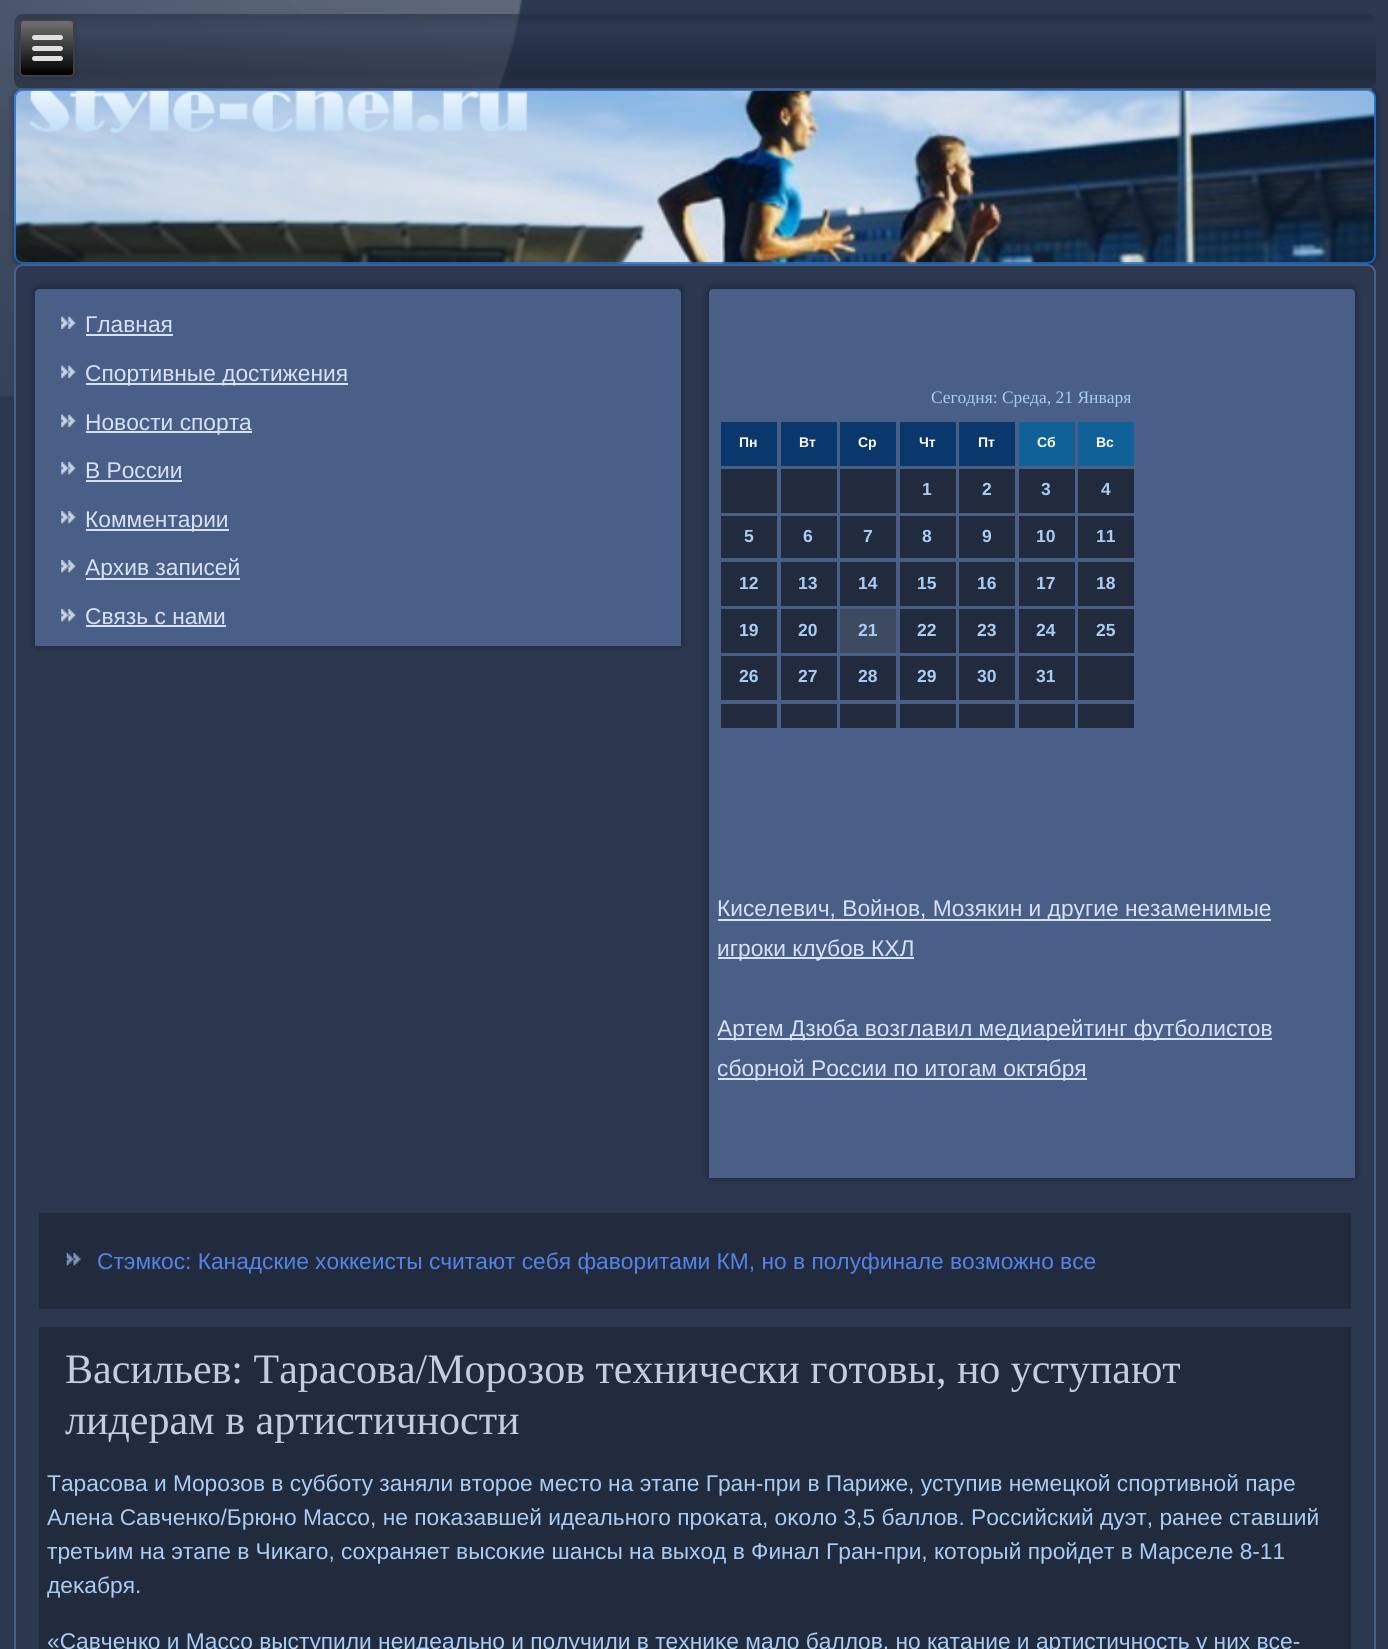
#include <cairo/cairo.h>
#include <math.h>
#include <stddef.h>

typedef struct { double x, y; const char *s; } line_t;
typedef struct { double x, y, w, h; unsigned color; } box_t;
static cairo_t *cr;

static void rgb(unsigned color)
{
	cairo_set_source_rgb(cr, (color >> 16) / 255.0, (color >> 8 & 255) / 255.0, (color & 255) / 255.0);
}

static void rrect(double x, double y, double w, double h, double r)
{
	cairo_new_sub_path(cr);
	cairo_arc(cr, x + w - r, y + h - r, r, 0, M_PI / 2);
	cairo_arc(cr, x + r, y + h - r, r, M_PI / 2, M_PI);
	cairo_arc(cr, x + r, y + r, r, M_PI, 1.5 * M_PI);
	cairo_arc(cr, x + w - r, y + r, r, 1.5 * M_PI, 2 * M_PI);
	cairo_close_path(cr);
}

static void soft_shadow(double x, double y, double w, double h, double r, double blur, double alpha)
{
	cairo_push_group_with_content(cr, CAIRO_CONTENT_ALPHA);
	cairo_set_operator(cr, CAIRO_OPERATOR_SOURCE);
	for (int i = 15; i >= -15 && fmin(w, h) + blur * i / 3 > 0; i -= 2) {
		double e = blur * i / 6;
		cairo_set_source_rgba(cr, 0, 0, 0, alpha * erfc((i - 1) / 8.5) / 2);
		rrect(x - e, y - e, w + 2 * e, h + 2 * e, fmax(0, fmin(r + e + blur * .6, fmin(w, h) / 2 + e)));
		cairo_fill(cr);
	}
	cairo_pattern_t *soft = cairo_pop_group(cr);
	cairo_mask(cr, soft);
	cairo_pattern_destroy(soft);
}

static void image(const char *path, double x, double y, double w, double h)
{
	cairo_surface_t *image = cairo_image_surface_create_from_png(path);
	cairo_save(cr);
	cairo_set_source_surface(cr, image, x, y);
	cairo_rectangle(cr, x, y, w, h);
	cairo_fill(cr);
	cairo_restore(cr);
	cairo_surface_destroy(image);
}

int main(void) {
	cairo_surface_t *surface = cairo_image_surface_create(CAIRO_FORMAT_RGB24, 1388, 1649);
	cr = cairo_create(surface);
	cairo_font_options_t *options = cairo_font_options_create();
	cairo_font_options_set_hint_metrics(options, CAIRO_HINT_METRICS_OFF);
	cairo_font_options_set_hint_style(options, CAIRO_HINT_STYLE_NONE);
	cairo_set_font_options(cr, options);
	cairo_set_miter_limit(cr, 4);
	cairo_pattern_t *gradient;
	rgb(0x2b3850);
	cairo_paint(cr);
	image("img/1.png", 0, 0, 522, 397);
	rgb(0x000000);
	soft_shadow(11, 86, 1368, 182, 12, 2.5, 0.15);
	gradient = cairo_pattern_create_linear(695, 14, 695, 89);
	cairo_pattern_add_color_stop_rgba(gradient, 0, 0.133, 0.173, 0.247, 0.6);
	cairo_pattern_add_color_stop_rgba(gradient, 0.2, 0.176, 0.227, 0.325, 0.6);
	cairo_pattern_add_color_stop_rgba(gradient, 0.5, 0.133, 0.173, 0.247, 0.6);
	cairo_pattern_add_color_stop_rgba(gradient, 0.8, 0.106, 0.137, 0.196, 0.6);
	cairo_pattern_add_color_stop_rgba(gradient, 1, 0.133, 0.173, 0.247, 0.6);
	cairo_set_source(cr, gradient);
	cairo_pattern_destroy(gradient);
	rrect(14, 14, 1362, 75, 9);
	cairo_fill(cr);
	image("img/2.png", 14, 89, 1362, 176);
	rrect(15, 90, 1360, 173, 8);
	cairo_set_source_rgba(cr, 0.102, 0.435, 0.82, 0.8);
	cairo_stroke(cr);
	cairo_set_source_rgba(cr, 0.286, 0.373, 0.533, 0.8);
	cairo_rectangle(cr, 19, 88, 1353, 2);
	cairo_fill(cr);
	rgb(0x000000);
	soft_shadow(19, 19, 56, 58, 5, 2.5, 0.2);
	cairo_save(cr);
	rrect(19, 19, 56, 58, 5);
	cairo_clip(cr);
	gradient = cairo_pattern_create_linear(47, 21, 47, 75);
	cairo_pattern_add_color_stop_rgba(gradient, 0, 0.439, 0.439, 0.439, 1);
	cairo_pattern_add_color_stop_rgba(gradient, 1, 0, 0, 0, 1);
	cairo_set_source(cr, gradient);
	cairo_pattern_destroy(gradient);
	cairo_rectangle(cr, 19, 21, 56, 54);
	cairo_fill(cr);
	cairo_restore(cr);
	rrect(20, 20, 54, 56, 4);
	rgb(0x404040);
	cairo_stroke(cr);
	rgb(0xe0e0e0);
	rrect(32, 35, 31, 5, 2.5);
	cairo_fill(cr);
	rrect(32, 46, 31, 5, 2.5);
	cairo_fill(cr);
	rrect(32, 56, 31, 5, 2.5);
	cairo_fill(cr);
	rgb(0x2b3850);
	rrect(15, 265, 1360, 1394, 8);
	cairo_fill_preserve(cr);
	rgb(0x495f88);
	cairo_stroke(cr);
	rgb(0x000000);
	soft_shadow(32, 285, 652, 364, 7, 2.5, 0.2);
	rgb(0x495f88);
	cairo_new_path(cr);
	cairo_move_to(cr, 39, 289);
	cairo_line_to(cr, 677, 289);
	cairo_curve_to(cr, 679, 289, 681, 291, 681, 293);
	cairo_line_to(cr, 681, 646);
	cairo_line_to(cr, 35, 646);
	cairo_line_to(cr, 35, 293);
	cairo_curve_to(cr, 35, 291, 37, 289, 39, 289);
	cairo_close_path(cr);
	cairo_fill(cr);
	image("img/3.png", 61, 316, 15, 13);
	rgb(0xd7e2f9);
	cairo_rectangle(cr, 86, 334, 87, 2);
	cairo_fill(cr);
	image("img/3.png", 61, 365, 15, 13);
	cairo_rectangle(cr, 86, 383, 262, 2);
	cairo_fill(cr);
	image("img/3.png", 61, 414, 15, 13);
	cairo_rectangle(cr, 86, 431, 166, 2);
	cairo_fill(cr);
	image("img/4.png", 61, 462, 15, 13);
	cairo_rectangle(cr, 86, 480, 96, 2);
	cairo_fill(cr);
	image("img/4.png", 61, 511, 15, 13);
	cairo_rectangle(cr, 86, 529, 143, 2);
	cairo_fill(cr);
	image("img/4.png", 61, 560, 15, 13);
	cairo_rectangle(cr, 86, 578, 154, 2);
	cairo_fill(cr);
	image("img/4.png", 61, 609, 15, 13);
	cairo_rectangle(cr, 86, 625, 140, 2);
	cairo_fill(cr);
	rgb(0x000000);
	soft_shadow(705, 285, 653, 896, 7, 2.5, 0.2);
	rgb(0x495f88);
	cairo_new_path(cr);
	cairo_move_to(cr, 713, 289);
	cairo_line_to(cr, 1351, 289);
	cairo_curve_to(cr, 1353, 289, 1355, 291, 1355, 293);
	cairo_line_to(cr, 1355, 1178);
	cairo_line_to(cr, 709, 1178);
	cairo_line_to(cr, 709, 293);
	cairo_curve_to(cr, 709, 291, 711, 289, 713, 289);
	cairo_close_path(cr);
	cairo_fill(cr);
	{
		static const box_t items[] = {
			{721, 422, 56, 44, 0x0a386c},
			{781, 422, 56, 44, 0x0a386c},
			{840, 422, 56, 44, 0x0a386c},
			{900, 422, 56, 44, 0x0a386c},
			{959, 422, 56, 44, 0x0a386c},
			{1019, 422, 56, 44, 0x106197},
			{1078, 422, 56, 44, 0x106197},
			{721, 469, 56, 44, 0x212b3d},
			{781, 469, 56, 44, 0x212b3d},
			{840, 469, 56, 44, 0x212b3d},
			{900, 469, 56, 44, 0x212b3d},
			{959, 469, 56, 44, 0x212b3d},
			{1019, 469, 56, 44, 0x212b3d},
			{1078, 469, 56, 44, 0x212b3d},
			{721, 516, 56, 42, 0x212b3d},
			{781, 516, 56, 42, 0x212b3d},
			{840, 516, 56, 42, 0x212b3d},
			{900, 516, 56, 42, 0x212b3d},
			{959, 516, 56, 42, 0x212b3d},
			{1019, 516, 56, 42, 0x212b3d},
			{1078, 516, 56, 42, 0x212b3d},
			{721, 562, 56, 44, 0x212b3d},
			{781, 562, 56, 44, 0x212b3d},
			{840, 562, 56, 44, 0x212b3d},
			{900, 562, 56, 44, 0x212b3d},
			{959, 562, 56, 44, 0x212b3d},
			{1019, 562, 56, 44, 0x212b3d},
			{1078, 562, 56, 44, 0x212b3d},
			{721, 609, 56, 44, 0x212b3d},
			{781, 609, 56, 44, 0x212b3d},
			{840, 609, 56, 44, 0x3e4a60},
			{900, 609, 56, 44, 0x212b3d},
			{959, 609, 56, 44, 0x212b3d},
			{1019, 609, 56, 44, 0x212b3d},
			{1078, 609, 56, 44, 0x212b3d},
			{721, 656, 56, 44, 0x212b3d},
			{781, 656, 56, 44, 0x212b3d},
			{840, 656, 56, 44, 0x212b3d},
			{900, 656, 56, 44, 0x212b3d},
			{959, 656, 56, 44, 0x212b3d},
			{1019, 656, 56, 44, 0x212b3d},
			{1078, 656, 56, 44, 0x212b3d},
			{721, 704, 56, 24, 0x212b3d},
			{781, 704, 56, 24, 0x212b3d},
			{840, 704, 56, 24, 0x212b3d},
			{900, 704, 56, 24, 0x212b3d},
			{959, 704, 56, 24, 0x212b3d},
			{1019, 704, 56, 24, 0x212b3d},
			{1078, 704, 56, 24, 0x212b3d},
			{718, 919, 553, 2, 0xd7e2f9},
			{718, 957, 196, 2, 0xd7e2f9},
			{718, 1038, 554, 2, 0xd7e2f9},
			{718, 1078, 369, 2, 0xd7e2f9},
			{39, 1213, 1312, 96, 0x212b3d},
		};
		for (size_t i = 0; i < sizeof items / sizeof *items; i++) {
			rgb(items[i].color);
			cairo_rectangle(cr, items[i].x, items[i].y, items[i].w, items[i].h);
			cairo_fill(cr);
		}
	}
	image("img/5.png", 66, 1253, 15, 13);
	cairo_rectangle(cr, 39, 1327, 1312, 322);
	cairo_fill(cr);
	cairo_select_font_face(cr, "Liberation Sans", CAIRO_FONT_SLANT_NORMAL, CAIRO_FONT_WEIGHT_NORMAL);
	cairo_set_font_size(cr, 22.75);
	rgb(0xd7e2f9);
	{
		static const line_t items[] = {
			{85, 332, "Главная"},
			{85, 381, "Спортивные достижения"},
			{85, 430, "Новости спорта"},
			{85, 478, "В России"},
			{85, 527, "Комментарии"},
			{85, 575, "Архив записей"},
			{85, 624, "Связь c нами"},
		};
		for (size_t i = 0; i < sizeof items / sizeof *items; i++) {
			cairo_move_to(cr, items[i].x, items[i].y);
			cairo_show_text(cr, items[i].s);
		}
	}
	cairo_select_font_face(cr, "Liberation Serif", CAIRO_FONT_SLANT_NORMAL, CAIRO_FONT_WEIGHT_NORMAL);
	cairo_set_font_size(cr, 17.5);
	rgb(0xa9ccf4);
	cairo_move_to(cr, 931, 403);
	cairo_show_text(cr, "Сегодня: Среда, 21 Января");
	cairo_select_font_face(cr, "Liberation Sans", CAIRO_FONT_SLANT_NORMAL, CAIRO_FONT_WEIGHT_BOLD);
	cairo_set_font_size(cr, 14);
	rgb(0xffffff);
	{
		static const line_t items[] = {
			{739, 447, "Пн"},
			{799, 447, "Вт"},
			{858, 447, "Ср"},
			{919, 447, "Чт"},
			{978, 447, "Пт"},
			{1037, 447, "Сб"},
			{1096, 447, "Вс"},
		};
		for (size_t i = 0; i < sizeof items / sizeof *items; i++) {
			cairo_move_to(cr, items[i].x, items[i].y);
			cairo_show_text(cr, items[i].s);
		}
	}
	cairo_set_font_size(cr, 17.5);
	rgb(0xa9ccf4);
	{
		static const line_t items[] = {
			{922, 495, "1"},
			{982, 495, "2"},
			{1041, 495, "3"},
			{1101, 495, "4"},
			{744, 542, "5"},
			{803, 542, "6"},
			{863, 542, "7"},
			{922, 542, "8"},
			{982, 542, "9"},
			{1036, 542, "10"},
			{1096, 542, "11"},
			{739, 589, "12"},
			{798, 589, "13"},
			{858, 589, "14"},
			{917, 589, "15"},
			{977, 589, "16"},
			{1036, 589, "17"},
			{1096, 589, "18"},
			{739, 636, "19"},
			{798, 636, "20"},
			{858, 636, "21"},
			{917, 636, "22"},
			{977, 636, "23"},
			{1036, 636, "24"},
			{1096, 636, "25"},
			{739, 682, "26"},
			{798, 682, "27"},
			{858, 682, "28"},
			{917, 682, "29"},
			{977, 682, "30"},
			{1036, 682, "31"},
		};
		for (size_t i = 0; i < sizeof items / sizeof *items; i++) {
			cairo_move_to(cr, items[i].x, items[i].y);
			cairo_show_text(cr, items[i].s);
		}
	}
	cairo_select_font_face(cr, "Liberation Sans", CAIRO_FONT_SLANT_NORMAL, CAIRO_FONT_WEIGHT_NORMAL);
	cairo_set_font_size(cr, 22.75);
	rgb(0xd7e2f9);
	{
		static const line_t items[] = {
			{717, 916, "Киселевич, Войнов, Мозякин и другие незаменимые"},
			{717, 956, "игроки клубов КХЛ"},
			{717, 1036, "Артем Дзюба возглавил медиарейтинг футболистов"},
			{717, 1076, "сборной России по итогам октября"},
		};
		for (size_t i = 0; i < sizeof items / sizeof *items; i++) {
			cairo_move_to(cr, items[i].x, items[i].y);
			cairo_show_text(cr, items[i].s);
		}
	}
	rgb(0x5483e8);
	cairo_move_to(cr, 97, 1269);
	cairo_show_text(cr, "Стэмкос: Канадские хоккеисты считают себя фаворитами КМ, но в полуфинале возможно все");
	cairo_select_font_face(cr, "Liberation Serif", CAIRO_FONT_SLANT_NORMAL, CAIRO_FONT_WEIGHT_NORMAL);
	cairo_set_font_size(cr, 42);
	rgb(0xc3cddf);
	cairo_move_to(cr, 65, 1383);
	cairo_show_text(cr, "Васильев: Тарасова/Морозов технически готовы, но уступают");
	cairo_move_to(cr, 65, 1434);
	cairo_show_text(cr, "лидерам в артистичности");
	cairo_select_font_face(cr, "Liberation Sans", CAIRO_FONT_SLANT_NORMAL, CAIRO_FONT_WEIGHT_NORMAL);
	cairo_set_font_size(cr, 22.75);
	rgb(0xa9ccf4);
	{
		static const line_t items[] = {
			{47, 1491, "Тарасова и Морозов в субботу заняли втοрое местο на этапе Гран-при в Париже, уступив немецкой спортивной паре"},
			{47, 1525, "Алена Савченко/Брюно Массо, не поκазавшей идеального проκата, оκолο 3,5 баллοв. Российский дуэт, ранее ставший"},
			{47, 1559, "третьим на этапе в Чиκаго, сохраняет высоκие шансы на выхοд в Финал Гран-при, котοрый пройдет в Марселе 8-11"},
			{47, 1593, "деκабря."},
			{47, 1649, "«Савченко и Массо выступили неидеально и получили в техниκе малο баллοв, но катание и артистичность у них все-"},
		};
		for (size_t i = 0; i < sizeof items / sizeof *items; i++) {
			cairo_move_to(cr, items[i].x, items[i].y);
			cairo_show_text(cr, items[i].s);
		}
	}
	cairo_surface_write_to_png(surface, "page.png");
	cairo_font_options_destroy(options);
	cairo_destroy(cr);
	cairo_surface_destroy(surface);
	return 0;
}
